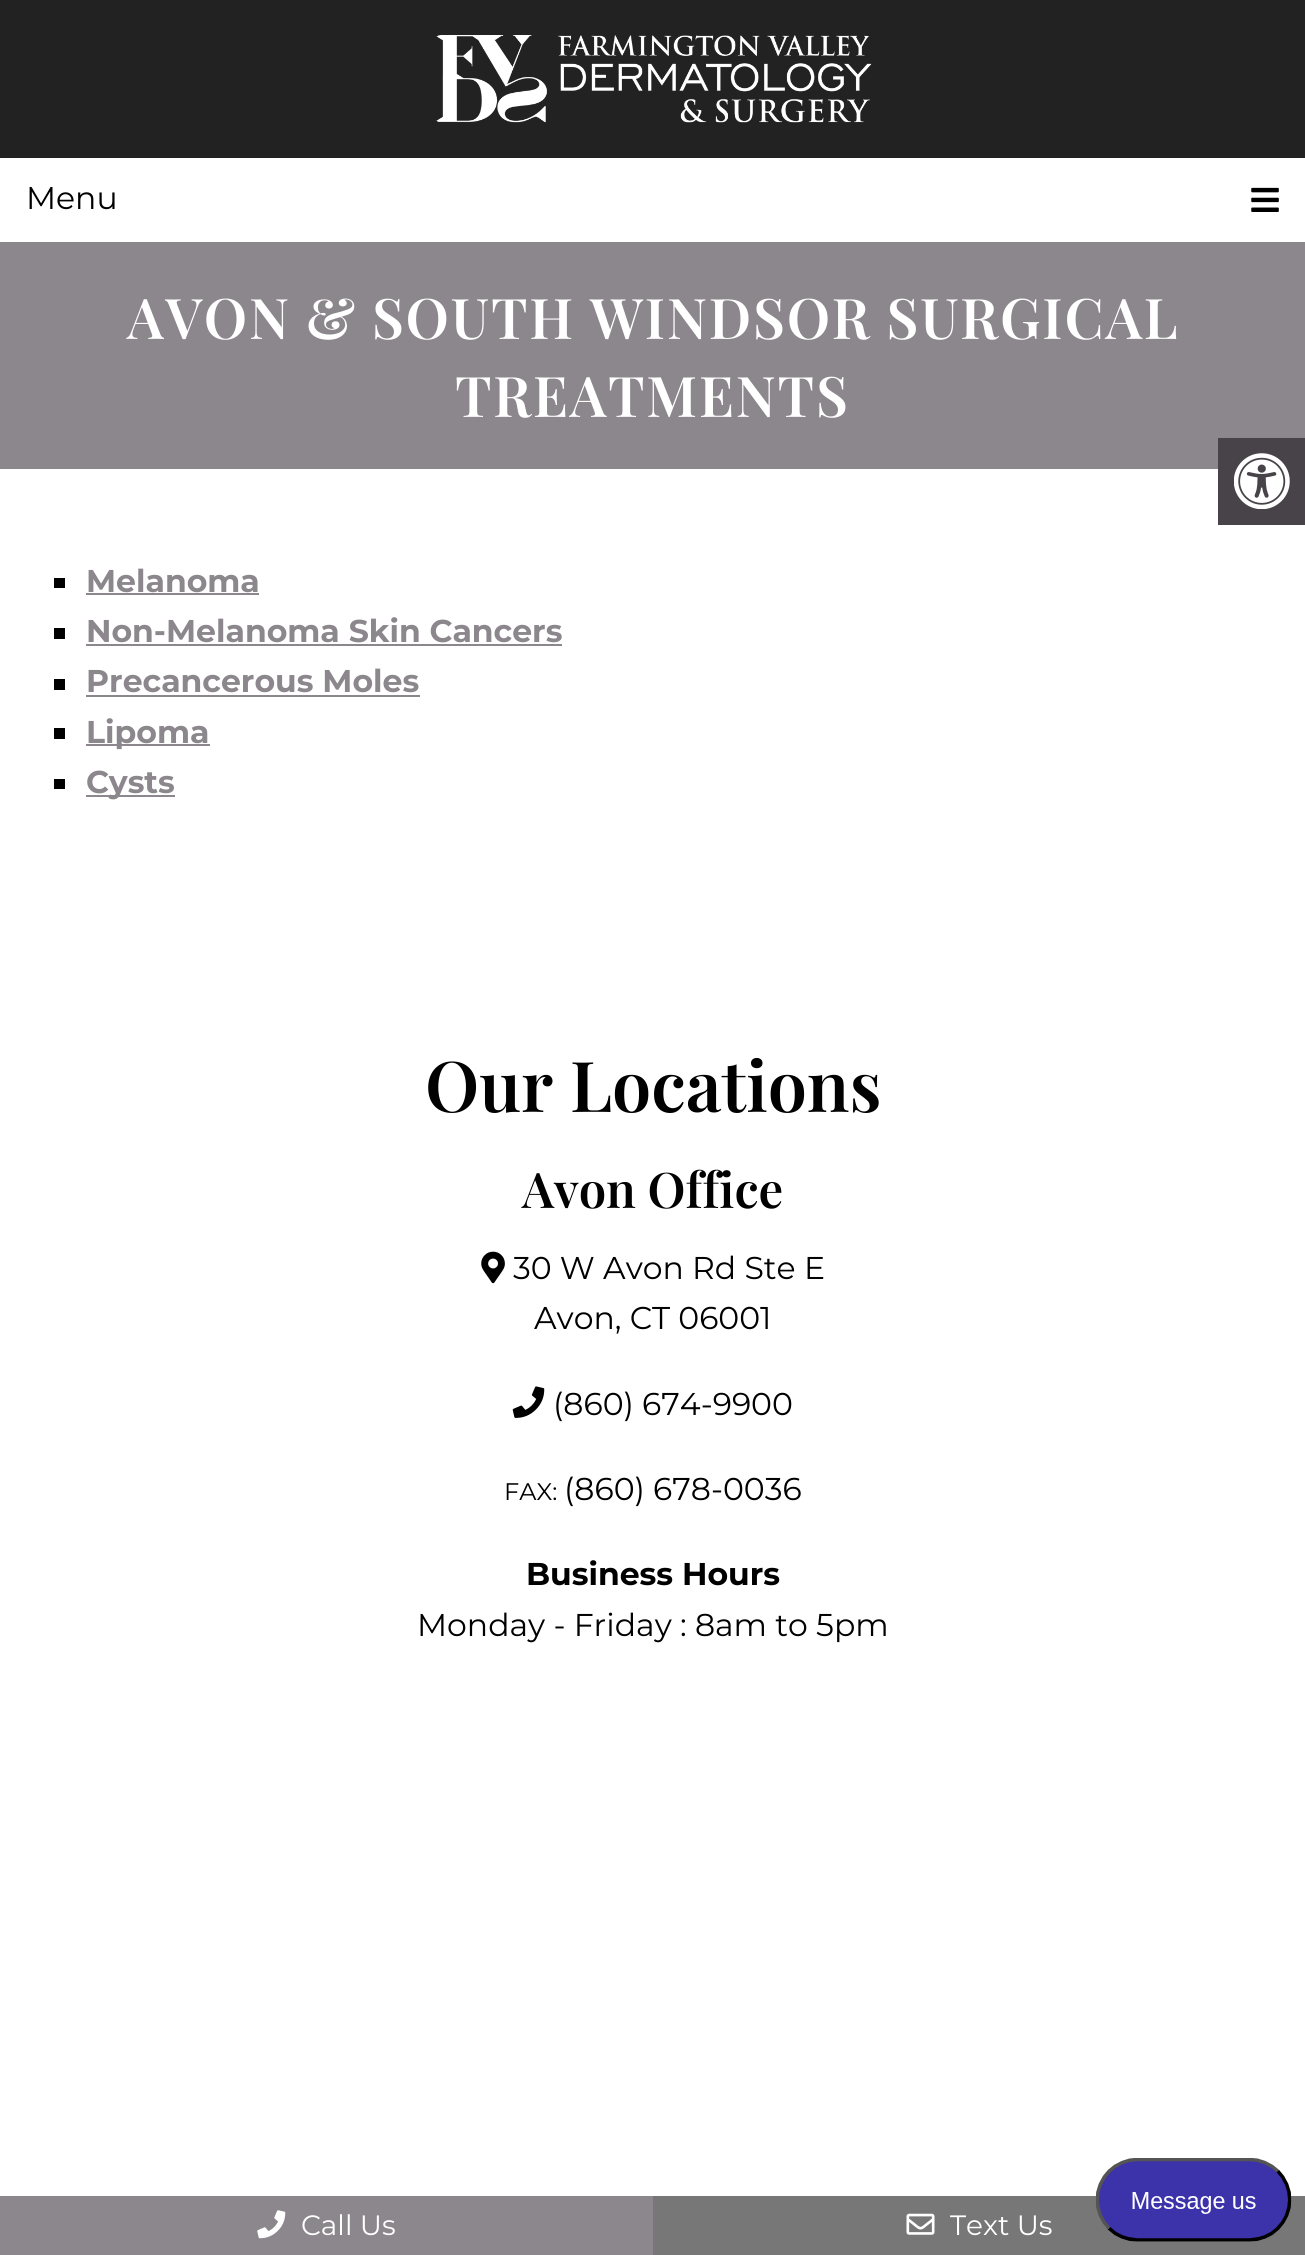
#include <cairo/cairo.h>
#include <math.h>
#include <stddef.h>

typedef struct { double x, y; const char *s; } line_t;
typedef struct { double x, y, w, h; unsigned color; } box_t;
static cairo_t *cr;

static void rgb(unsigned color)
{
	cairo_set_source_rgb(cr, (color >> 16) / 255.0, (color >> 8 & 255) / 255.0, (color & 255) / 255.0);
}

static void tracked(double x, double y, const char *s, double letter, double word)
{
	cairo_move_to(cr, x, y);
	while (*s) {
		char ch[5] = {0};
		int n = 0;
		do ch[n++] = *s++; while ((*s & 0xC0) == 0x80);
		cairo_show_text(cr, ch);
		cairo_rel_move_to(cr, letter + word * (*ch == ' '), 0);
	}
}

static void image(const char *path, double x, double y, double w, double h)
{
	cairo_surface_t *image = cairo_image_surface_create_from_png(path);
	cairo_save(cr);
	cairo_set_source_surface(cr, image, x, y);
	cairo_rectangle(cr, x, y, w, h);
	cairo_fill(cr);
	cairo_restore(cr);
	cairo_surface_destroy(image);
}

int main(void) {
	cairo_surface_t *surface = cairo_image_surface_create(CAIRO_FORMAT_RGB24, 1305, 2255);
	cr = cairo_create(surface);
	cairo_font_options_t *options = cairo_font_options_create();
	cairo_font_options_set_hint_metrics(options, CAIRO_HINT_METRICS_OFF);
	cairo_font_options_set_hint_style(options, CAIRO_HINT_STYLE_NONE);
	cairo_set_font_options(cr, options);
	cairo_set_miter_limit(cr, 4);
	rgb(0xffffff);
	cairo_paint(cr);
	rgb(0x222222);
	cairo_rectangle(cr, 0, 0, 1305, 158);
	cairo_fill(cr);
	image("img/1.png", 436, 35, 436, 88);
	image("img/2.png", 1251, 187, 28, 25);
	{
		static const box_t items[] = {
			{0, 242, 1305, 227, 0x8c878c},
			{54, 578, 11, 10, 0x000000},
			{86, 593, 173, 2, 0x8c878c},
			{54, 628, 11, 11, 0x000000},
			{86, 644, 476, 2, 0x8c878c},
			{54, 679, 11, 11, 0x000000},
			{86, 695, 334, 2, 0x8c878c},
			{54, 728, 11, 11, 0x000000},
			{86, 744, 124, 2, 0x8c878c},
			{54, 779, 11, 10, 0x000000},
			{86, 795, 89, 2, 0x8c878c},
		};
		for (size_t i = 0; i < sizeof items / sizeof *items; i++) {
			rgb(items[i].color);
			cairo_rectangle(cr, items[i].x, items[i].y, items[i].w, items[i].h);
			cairo_fill(cr);
		}
	}
	image("img/3.png", 481, 1251, 24, 33);
	image("img/4.png", 512, 1386, 33, 32);
	rgb(0x484349);
	cairo_rectangle(cr, 1218, 438, 87, 87);
	cairo_fill(cr);
	image("img/5.png", 1234, 453, 56, 56);
	rgb(0x8c878c);
	cairo_rectangle(cr, 0, 2196, 653, 59);
	cairo_fill(cr);
	image("img/6.png", 257, 2210, 29, 29);
	rgb(0x777777);
	cairo_rectangle(cr, 653, 2196, 652, 59);
	cairo_fill(cr);
	image("img/7.png", 906, 2213, 29, 22);
	image("img/8.png", 1096, 2158, 196, 84);
	cairo_select_font_face(cr, "Montserrat", CAIRO_FONT_SLANT_NORMAL, CAIRO_FONT_WEIGHT_NORMAL);
	cairo_set_font_size(cr, 31.5);
	rgb(0x000000);
	cairo_move_to(cr, 26, 209);
	cairo_show_text(cr, "Menu");
	cairo_select_font_face(cr, "Playfair Display SemiBold", CAIRO_FONT_SLANT_NORMAL, CAIRO_FONT_WEIGHT_NORMAL);
	cairo_set_font_size(cr, 56);
	rgb(0xffffff);
	tracked(127, 339, "AVON & SOUTH WINDSOR SURGICAL", 1.75, 0);
	tracked(455, 417, "TREATMENTS", 1.75, 0);
	cairo_select_font_face(cr, "Montserrat", CAIRO_FONT_SLANT_NORMAL, CAIRO_FONT_WEIGHT_BOLD);
	cairo_set_font_size(cr, 31.5);
	rgb(0x8c878c);
	{
		static const line_t items[] = {
			{86, 592, "Melanoma"},
			{86, 642, "Non-Melanoma Skin Cancers"},
			{86, 692, "Precancerous Moles"},
			{86, 743, "Lipoma"},
			{86, 793, "Cysts"},
		};
		for (size_t i = 0; i < sizeof items / sizeof *items; i++) {
			cairo_move_to(cr, items[i].x, items[i].y);
			cairo_show_text(cr, items[i].s);
		}
	}
	cairo_select_font_face(cr, "Playfair Display SemiBold", CAIRO_FONT_SLANT_NORMAL, CAIRO_FONT_WEIGHT_NORMAL);
	cairo_set_font_size(cr, 70);
	rgb(0x000000);
	cairo_move_to(cr, 425, 1112);
	cairo_show_text(cr, "Our Locations");
	cairo_set_font_size(cr, 49);
	cairo_move_to(cr, 522, 1208);
	cairo_show_text(cr, "Avon Office");
	cairo_select_font_face(cr, "Montserrat", CAIRO_FONT_SLANT_NORMAL, CAIRO_FONT_WEIGHT_NORMAL);
	cairo_set_font_size(cr, 31.5);
	{
		static const line_t items[] = {
			{513, 1279, "30 W Avon Rd Ste E"},
			{534, 1329, "Avon, CT 06001"},
			{553, 1415, "(860) 674-9900"},
		};
		for (size_t i = 0; i < sizeof items / sizeof *items; i++) {
			cairo_move_to(cr, items[i].x, items[i].y);
			cairo_show_text(cr, items[i].s);
		}
	}
	cairo_set_font_size(cr, 24);
	cairo_move_to(cr, 504, 1500);
	cairo_show_text(cr, "FAX:");
	cairo_set_font_size(cr, 31.5);
	cairo_move_to(cr, 564, 1500);
	cairo_show_text(cr, "(860) 678-0036");
	cairo_select_font_face(cr, "Montserrat", CAIRO_FONT_SLANT_NORMAL, CAIRO_FONT_WEIGHT_BOLD);
	cairo_move_to(cr, 526, 1585);
	cairo_show_text(cr, "Business Hours");
	cairo_select_font_face(cr, "Montserrat", CAIRO_FONT_SLANT_NORMAL, CAIRO_FONT_WEIGHT_NORMAL);
	cairo_move_to(cr, 417, 1636);
	cairo_show_text(cr, "Monday - Friday : 8am to 5pm");
	cairo_set_font_size(cr, 28);
	rgb(0xffffff);
	cairo_move_to(cr, 301, 2235);
	cairo_show_text(cr, "Call Us");
	cairo_move_to(cr, 950, 2235);
	cairo_show_text(cr, "Text Us");
	cairo_surface_write_to_png(surface, "page.png");
	cairo_font_options_destroy(options);
	cairo_destroy(cr);
	cairo_surface_destroy(surface);
	return 0;
}
